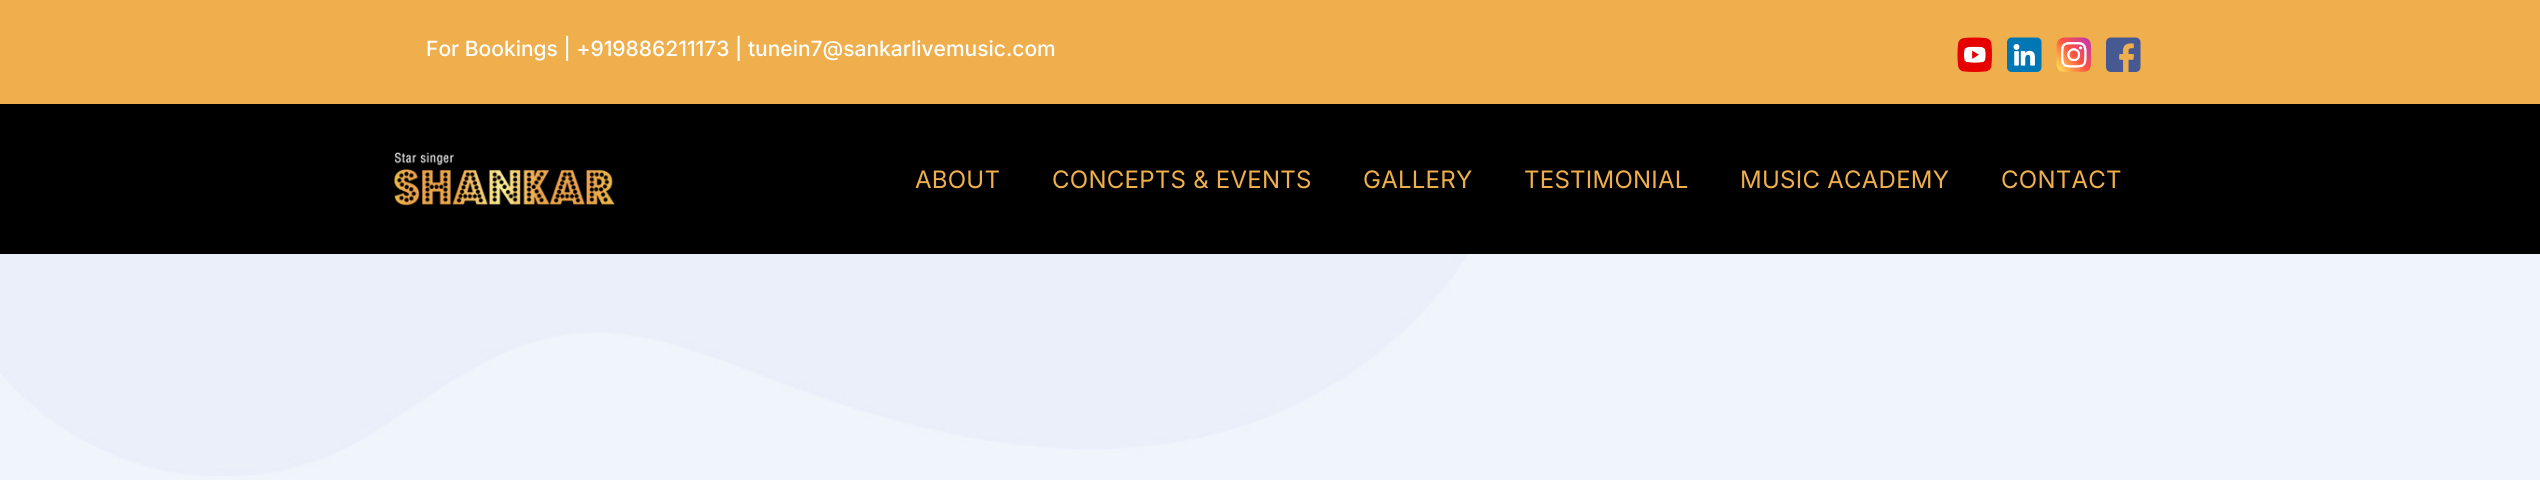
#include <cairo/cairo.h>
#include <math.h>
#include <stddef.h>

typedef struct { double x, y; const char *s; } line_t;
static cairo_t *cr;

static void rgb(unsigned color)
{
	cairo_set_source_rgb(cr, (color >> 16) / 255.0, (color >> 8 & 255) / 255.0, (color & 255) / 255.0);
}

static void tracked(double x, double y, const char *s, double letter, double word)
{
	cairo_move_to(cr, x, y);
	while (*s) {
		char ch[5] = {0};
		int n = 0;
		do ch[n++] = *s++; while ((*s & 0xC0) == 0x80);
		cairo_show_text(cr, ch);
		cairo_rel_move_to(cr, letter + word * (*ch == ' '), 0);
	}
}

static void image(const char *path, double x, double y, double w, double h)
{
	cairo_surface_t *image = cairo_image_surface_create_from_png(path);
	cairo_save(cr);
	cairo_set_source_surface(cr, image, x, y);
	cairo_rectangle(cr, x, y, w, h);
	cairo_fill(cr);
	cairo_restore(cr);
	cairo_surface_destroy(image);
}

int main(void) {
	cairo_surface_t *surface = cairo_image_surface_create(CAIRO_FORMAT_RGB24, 2540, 480);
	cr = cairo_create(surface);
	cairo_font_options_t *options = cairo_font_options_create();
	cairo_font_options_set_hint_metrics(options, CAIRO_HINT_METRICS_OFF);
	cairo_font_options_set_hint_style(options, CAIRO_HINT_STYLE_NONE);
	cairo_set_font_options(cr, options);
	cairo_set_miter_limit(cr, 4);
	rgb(0xeeaf4c);
	cairo_paint(cr);
	image("img/1.png", 1957, 37, 35, 35);
	image("img/2.png", 2007, 37, 35, 35);
	image("img/3.png", 2056, 37, 35, 35);
	image("img/4.png", 2106, 37, 35, 35);
	rgb(0x000000);
	cairo_rectangle(cr, 0, 104, 2540, 150);
	cairo_fill(cr);
	image("img/5.png", 394, 152, 221, 54);
	rgb(0xeff5fb);
	cairo_rectangle(cr, 0, 476, 2540, 4);
	cairo_fill(cr);
	image("img/6.png", 0, 254, 2540, 222);
	cairo_select_font_face(cr, "Inter Medium", CAIRO_FONT_SLANT_NORMAL, CAIRO_FONT_WEIGHT_NORMAL);
	cairo_set_font_size(cr, 21);
	rgb(0xffffff);
	cairo_move_to(cr, 426, 56);
	cairo_show_text(cr, "For Bookings | +919886211173 | tunein7@sankarlivemusic.com");
	cairo_select_font_face(cr, "Inter", CAIRO_FONT_SLANT_NORMAL, CAIRO_FONT_WEIGHT_NORMAL);
	cairo_set_font_size(cr, 24);
	rgb(0xeeaf4c);
	{
		static const line_t items[] = {
			{915, 188, "ABOUT"},
			{1052, 188, "CONCEPTS & EVENTS"},
			{1363, 188, "GALLERY"},
			{1524, 188, "TESTIMONIAL"},
			{1740, 188, "MUSIC ACADEMY"},
			{2001, 188, "CONTACT"},
		};
		for (size_t i = 0; i < sizeof items / sizeof *items; i++) {
			tracked(items[i].x, items[i].y, items[i].s, 0.25, 0);
		}
	}
	cairo_surface_write_to_png(surface, "page.png");
	cairo_font_options_destroy(options);
	cairo_destroy(cr);
	cairo_surface_destroy(surface);
	return 0;
}
